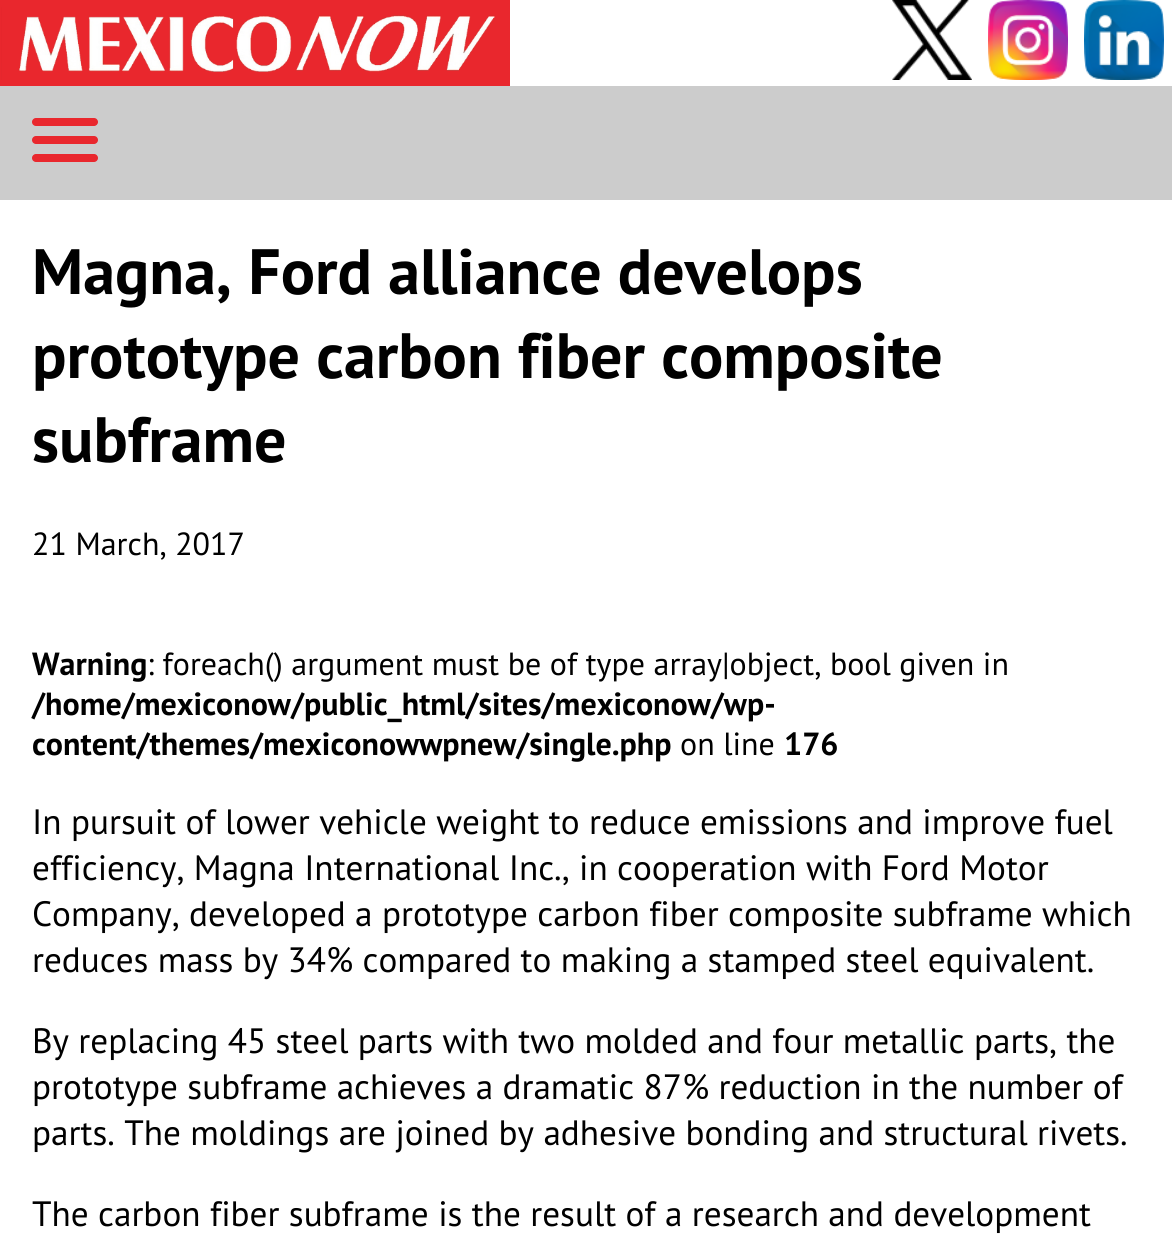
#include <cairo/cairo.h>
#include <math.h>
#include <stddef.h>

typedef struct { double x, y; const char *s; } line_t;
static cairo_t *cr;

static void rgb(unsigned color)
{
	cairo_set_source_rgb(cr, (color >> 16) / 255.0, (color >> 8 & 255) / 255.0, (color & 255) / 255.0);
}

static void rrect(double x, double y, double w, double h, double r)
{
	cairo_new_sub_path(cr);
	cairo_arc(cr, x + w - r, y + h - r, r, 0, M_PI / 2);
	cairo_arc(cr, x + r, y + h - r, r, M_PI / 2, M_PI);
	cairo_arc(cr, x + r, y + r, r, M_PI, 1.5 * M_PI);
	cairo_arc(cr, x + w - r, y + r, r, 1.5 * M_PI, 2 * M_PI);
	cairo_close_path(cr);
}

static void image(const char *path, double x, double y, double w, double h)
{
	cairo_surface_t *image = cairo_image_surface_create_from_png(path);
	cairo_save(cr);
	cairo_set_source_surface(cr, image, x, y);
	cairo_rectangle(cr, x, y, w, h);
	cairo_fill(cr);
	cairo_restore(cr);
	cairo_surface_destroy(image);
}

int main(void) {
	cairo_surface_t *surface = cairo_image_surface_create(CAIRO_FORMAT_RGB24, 1172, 1254);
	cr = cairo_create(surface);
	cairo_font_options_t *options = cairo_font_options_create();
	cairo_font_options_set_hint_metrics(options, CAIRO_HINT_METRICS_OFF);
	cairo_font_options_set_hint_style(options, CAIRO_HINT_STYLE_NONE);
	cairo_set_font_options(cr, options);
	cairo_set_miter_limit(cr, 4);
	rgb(0xffffff);
	cairo_paint(cr);
	rgb(0xe9272d);
	cairo_rectangle(cr, 0, 0, 510, 86);
	cairo_fill(cr);
	image("img/1.png", 1, 7, 494, 73);
	image("img/2.png", 892, 0, 80, 80);
	image("img/3.png", 988, 0, 80, 80);
	image("img/4.png", 1084, 0, 80, 80);
	rgb(0xcccccc);
	cairo_rectangle(cr, 0, 86, 1172, 114);
	cairo_fill(cr);
	rgb(0xe9272d);
	rrect(32, 118, 66, 8, 4);
	cairo_fill(cr);
	rrect(32, 136, 66, 8, 4);
	cairo_fill(cr);
	rrect(32, 154, 66, 8, 4);
	cairo_fill(cr);
	cairo_select_font_face(cr, "PT Sans", CAIRO_FONT_SLANT_NORMAL, CAIRO_FONT_WEIGHT_BOLD);
	cairo_set_font_size(cr, 64);
	rgb(0x000000);
	{
		static const line_t items[] = {
			{32, 294, "Magna, Ford alliance develops"},
			{32, 378, "prototype carbon fiber composite"},
			{32, 462, "subframe"},
		};
		for (size_t i = 0; i < sizeof items / sizeof *items; i++) {
			cairo_move_to(cr, items[i].x, items[i].y);
			cairo_show_text(cr, items[i].s);
		}
	}
	cairo_select_font_face(cr, "PT Sans", CAIRO_FONT_SLANT_NORMAL, CAIRO_FONT_WEIGHT_NORMAL);
	cairo_set_font_size(cr, 32);
	cairo_move_to(cr, 32, 555);
	cairo_show_text(cr, "21 March, 2017");
	cairo_select_font_face(cr, "PT Sans", CAIRO_FONT_SLANT_NORMAL, CAIRO_FONT_WEIGHT_BOLD);
	cairo_move_to(cr, 32, 675);
	cairo_show_text(cr, "Warning");
	cairo_select_font_face(cr, "PT Sans", CAIRO_FONT_SLANT_NORMAL, CAIRO_FONT_WEIGHT_NORMAL);
	cairo_move_to(cr, 147, 675);
	cairo_show_text(cr, ": foreach() argument must be of type array|object, bool given in");
	cairo_select_font_face(cr, "PT Sans", CAIRO_FONT_SLANT_NORMAL, CAIRO_FONT_WEIGHT_BOLD);
	cairo_move_to(cr, 32, 715);
	cairo_show_text(cr, "/home/mexiconow/public_html/sites/mexiconow/wp-");
	cairo_move_to(cr, 32, 755);
	cairo_show_text(cr, "content/themes/mexiconowwpnew/single.php");
	cairo_select_font_face(cr, "PT Sans", CAIRO_FONT_SLANT_NORMAL, CAIRO_FONT_WEIGHT_NORMAL);
	cairo_move_to(cr, 680, 755);
	cairo_show_text(cr, "on line");
	cairo_select_font_face(cr, "PT Sans", CAIRO_FONT_SLANT_NORMAL, CAIRO_FONT_WEIGHT_BOLD);
	cairo_move_to(cr, 784, 755);
	cairo_show_text(cr, "176");
	cairo_select_font_face(cr, "PT Sans", CAIRO_FONT_SLANT_NORMAL, CAIRO_FONT_WEIGHT_NORMAL);
	cairo_set_font_size(cr, 35.2);
	{
		static const line_t items[] = {
			{32, 834, "In pursuit of lower vehicle weight to reduce emissions and improve fuel"},
			{32, 880, "efficiency, Magna International Inc., in cooperation with Ford Motor"},
			{32, 926, "Company, developed a prototype carbon fiber composite subframe which"},
			{32, 972, "reduces mass by 34% compared to making a stamped steel equivalent."},
			{32, 1053, "By replacing 45 steel parts with two molded and four metallic parts, the"},
			{32, 1099, "prototype subframe achieves a dramatic 87% reduction in the number of"},
			{32, 1145, "parts. The moldings are joined by adhesive bonding and structural rivets."},
			{32, 1226, "The carbon fiber subframe is the result of a research and development"},
		};
		for (size_t i = 0; i < sizeof items / sizeof *items; i++) {
			cairo_move_to(cr, items[i].x, items[i].y);
			cairo_show_text(cr, items[i].s);
		}
	}
	cairo_surface_write_to_png(surface, "page.png");
	cairo_font_options_destroy(options);
	cairo_destroy(cr);
	cairo_surface_destroy(surface);
	return 0;
}
